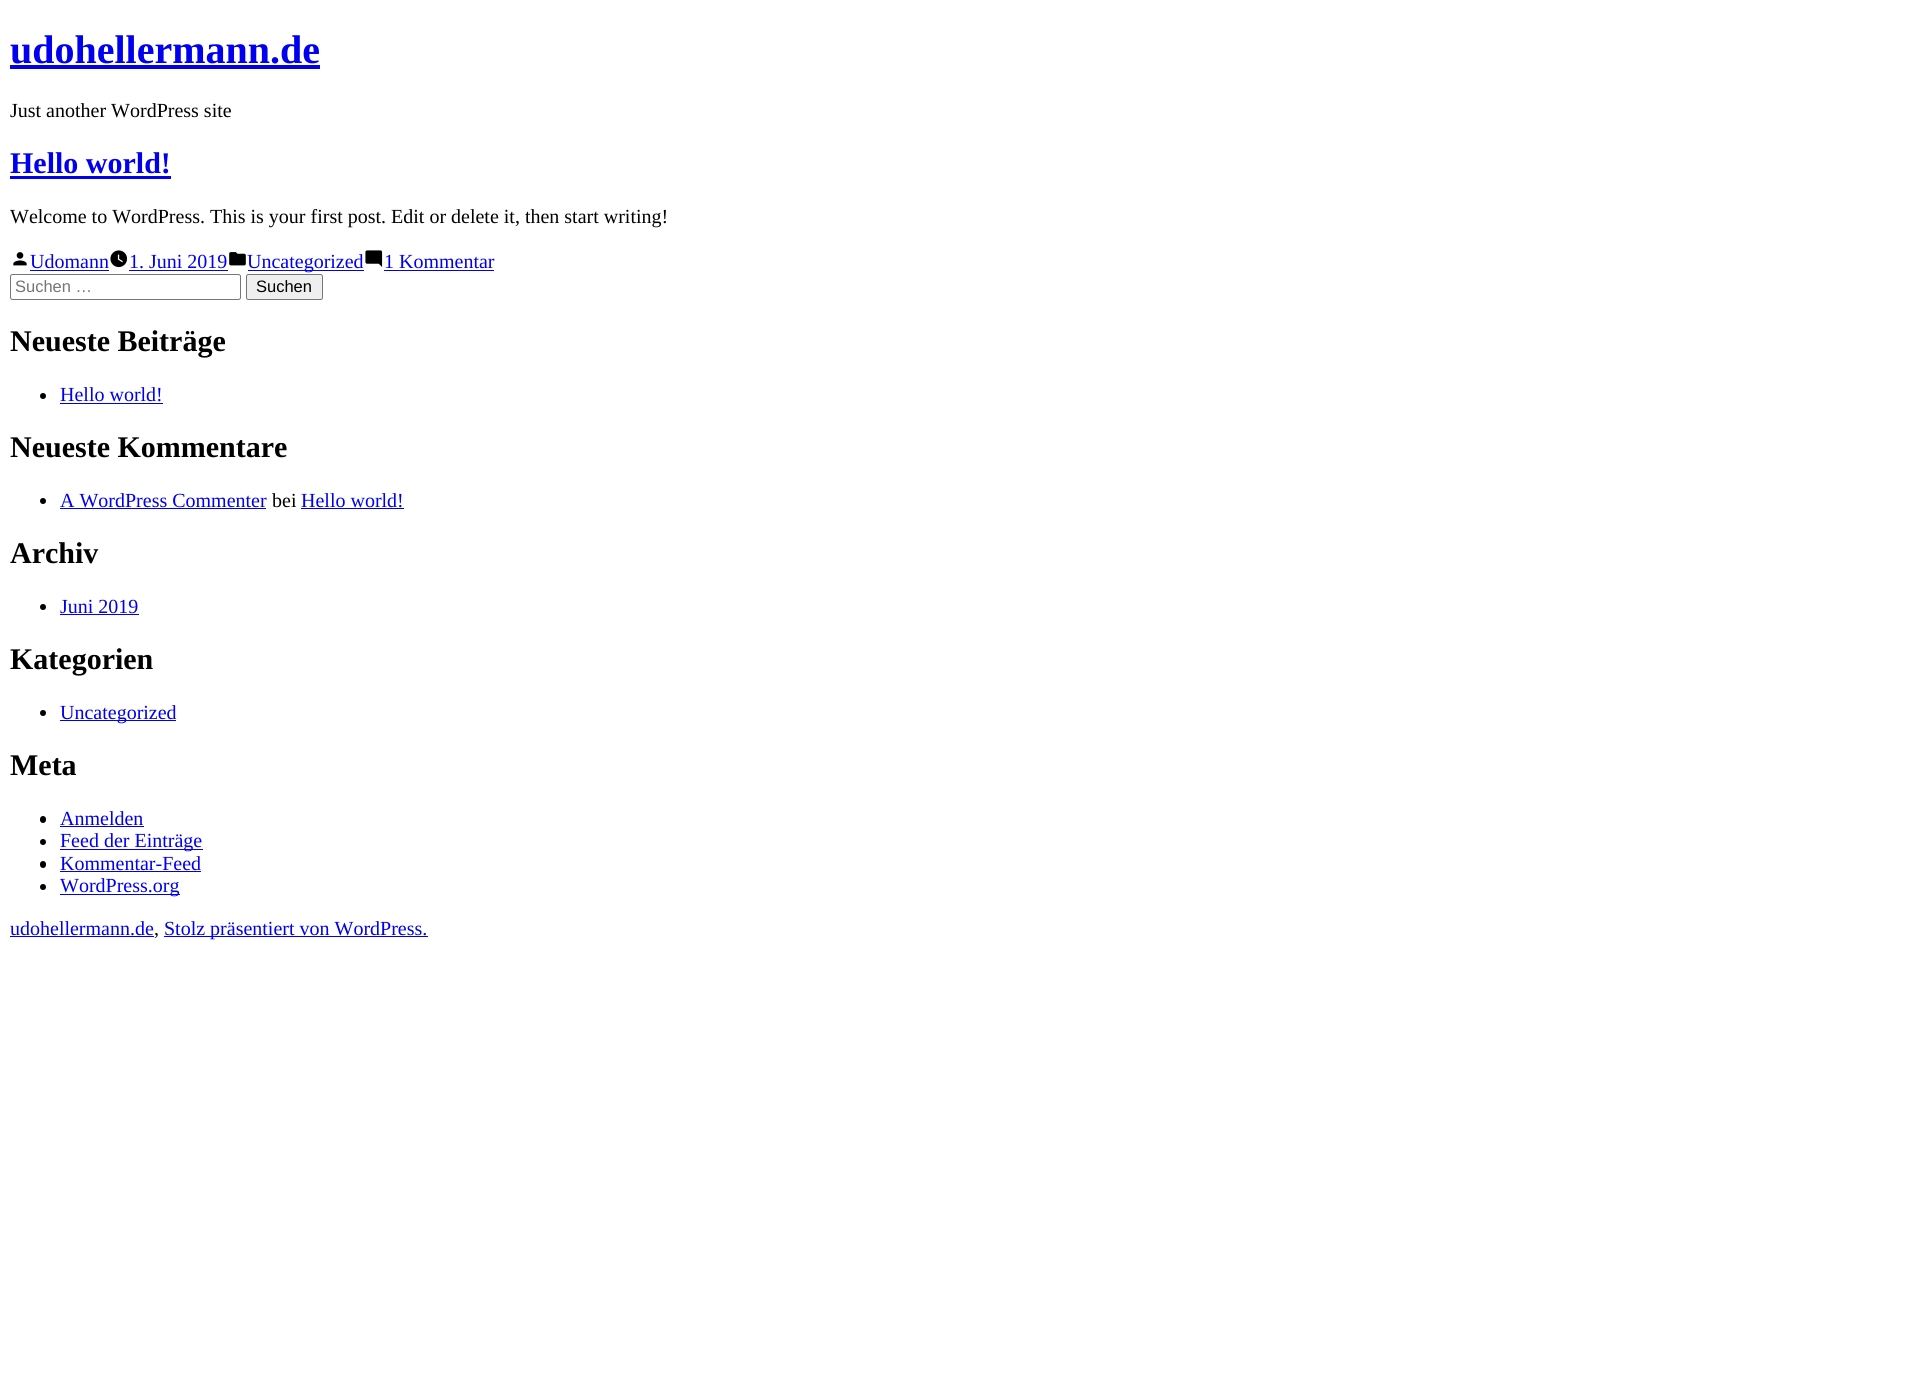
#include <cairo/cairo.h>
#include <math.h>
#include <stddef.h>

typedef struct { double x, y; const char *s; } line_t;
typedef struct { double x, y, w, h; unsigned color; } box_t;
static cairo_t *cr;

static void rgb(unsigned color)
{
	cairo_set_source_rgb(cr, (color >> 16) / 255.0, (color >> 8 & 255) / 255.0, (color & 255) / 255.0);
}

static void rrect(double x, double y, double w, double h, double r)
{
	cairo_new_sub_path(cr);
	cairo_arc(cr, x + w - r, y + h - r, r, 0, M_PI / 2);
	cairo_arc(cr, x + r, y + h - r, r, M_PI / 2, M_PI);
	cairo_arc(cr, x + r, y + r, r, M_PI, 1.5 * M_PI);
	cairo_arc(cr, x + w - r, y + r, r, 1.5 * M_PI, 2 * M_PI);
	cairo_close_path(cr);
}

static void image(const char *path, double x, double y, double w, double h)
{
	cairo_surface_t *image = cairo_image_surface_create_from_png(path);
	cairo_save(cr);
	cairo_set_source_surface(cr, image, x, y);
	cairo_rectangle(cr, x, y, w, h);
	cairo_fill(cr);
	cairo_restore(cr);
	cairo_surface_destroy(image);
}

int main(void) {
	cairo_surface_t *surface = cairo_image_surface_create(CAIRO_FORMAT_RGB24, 1920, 1374);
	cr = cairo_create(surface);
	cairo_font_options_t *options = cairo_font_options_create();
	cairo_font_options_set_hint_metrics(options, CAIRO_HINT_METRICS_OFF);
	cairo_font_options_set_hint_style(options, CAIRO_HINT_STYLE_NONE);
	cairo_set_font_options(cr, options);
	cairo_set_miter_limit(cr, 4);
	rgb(0xffffff);
	cairo_paint(cr);
	rgb(0x0000ee);
	cairo_rectangle(cr, 10, 65, 310, 4);
	cairo_fill(cr);
	cairo_rectangle(cr, 10, 176, 161, 3);
	cairo_fill(cr);
	image("img/1.png", 13, 252, 14, 14);
	cairo_rectangle(cr, 30, 270, 79, 1);
	cairo_fill(cr);
	image("img/2.png", 110, 250, 18, 18);
	cairo_rectangle(cr, 129, 270, 99, 1);
	cairo_fill(cr);
	image("img/3.png", 229, 252, 17, 14);
	cairo_rectangle(cr, 248, 270, 116, 1);
	cairo_fill(cr);
	image("img/4.png", 365, 250, 18, 17);
	cairo_rectangle(cr, 384, 270, 110, 1);
	cairo_fill(cr);
	rrect(10.5, 274.5, 230, 25, 2);
	rgb(0x767676);
	cairo_set_line_width(cr, 1);
	cairo_stroke(cr);
	rgb(0xefefef);
	rrect(246.5, 274.5, 76, 25, 2);
	cairo_fill_preserve(cr);
	rgb(0x767676);
	cairo_stroke(cr);
	rgb(0x000000);
	cairo_arc(cr, 43, 396, 3, 0, 2 * M_PI);
	cairo_fill(cr);
	rgb(0x0000ee);
	cairo_rectangle(cr, 60, 403, 103, 1);
	cairo_fill(cr);
	rgb(0x000000);
	cairo_arc(cr, 43, 501, 3, 0, 2 * M_PI);
	cairo_fill(cr);
	rgb(0x0000ee);
	cairo_rectangle(cr, 60, 508, 206, 1);
	cairo_fill(cr);
	cairo_rectangle(cr, 301, 508, 103, 1);
	cairo_fill(cr);
	rgb(0x000000);
	cairo_arc(cr, 43, 607, 3, 0, 2 * M_PI);
	cairo_fill(cr);
	rgb(0x0000ee);
	cairo_rectangle(cr, 60, 614, 79, 1);
	cairo_fill(cr);
	rgb(0x000000);
	cairo_arc(cr, 43, 713, 3, 0, 2 * M_PI);
	cairo_fill(cr);
	rgb(0x0000ee);
	cairo_rectangle(cr, 60, 720, 116, 1);
	cairo_fill(cr);
	rgb(0x000000);
	rrect(40, 816, 6, 7, 3);
	cairo_fill(cr);
	rgb(0x0000ee);
	cairo_rectangle(cr, 60, 826, 84, 1);
	cairo_fill(cr);
	rgb(0x000000);
	cairo_arc(cr, 43, 842, 3, 0, 2 * M_PI);
	cairo_fill(cr);
	rgb(0x0000ee);
	cairo_rectangle(cr, 60, 849, 143, 1);
	cairo_fill(cr);
	rgb(0x000000);
	rrect(40, 861, 6, 7, 3);
	cairo_fill(cr);
	rgb(0x0000ee);
	cairo_rectangle(cr, 60, 871, 141, 1);
	cairo_fill(cr);
	rgb(0x000000);
	cairo_arc(cr, 43, 887, 3, 0, 2 * M_PI);
	cairo_fill(cr);
	{
		static const box_t items[] = {
			{60, 894, 120, 1, 0x0000ee},
			{10, 936, 144, 1, 0x0000ee},
			{164, 936, 264, 1, 0x0000ee},
		};
		for (size_t i = 0; i < sizeof items / sizeof *items; i++) {
			rgb(items[i].color);
			cairo_rectangle(cr, items[i].x, items[i].y, items[i].w, items[i].h);
			cairo_fill(cr);
		}
	}
	cairo_select_font_face(cr, "Liberation Serif", CAIRO_FONT_SLANT_NORMAL, CAIRO_FONT_WEIGHT_BOLD);
	cairo_set_font_size(cr, 40);
	cairo_move_to(cr, 10, 63);
	cairo_show_text(cr, "udohellermann.de");
	cairo_select_font_face(cr, "Liberation Serif", CAIRO_FONT_SLANT_NORMAL, CAIRO_FONT_WEIGHT_NORMAL);
	cairo_set_font_size(cr, 20);
	rgb(0x000000);
	cairo_move_to(cr, 10, 117);
	cairo_show_text(cr, "Just another WordPress site");
	cairo_select_font_face(cr, "Liberation Serif", CAIRO_FONT_SLANT_NORMAL, CAIRO_FONT_WEIGHT_BOLD);
	cairo_set_font_size(cr, 30);
	rgb(0x0000ee);
	cairo_move_to(cr, 10, 173);
	cairo_show_text(cr, "Hello world!");
	cairo_select_font_face(cr, "Liberation Serif", CAIRO_FONT_SLANT_NORMAL, CAIRO_FONT_WEIGHT_NORMAL);
	cairo_set_font_size(cr, 20);
	rgb(0x000000);
	cairo_move_to(cr, 10, 223);
	cairo_show_text(cr, "Welcome to WordPress. This is your first post. Edit or delete it, then start writing!");
	rgb(0x0000ee);
	{
		static const line_t items[] = {
			{30, 268, "Udomann"},
			{129, 268, "1. Juni 2019"},
			{247, 268, "Uncategorized"},
			{384, 268, "1 Kommentar"},
		};
		for (size_t i = 0; i < sizeof items / sizeof *items; i++) {
			cairo_move_to(cr, items[i].x, items[i].y);
			cairo_show_text(cr, items[i].s);
		}
	}
	cairo_select_font_face(cr, "Liberation Sans", CAIRO_FONT_SLANT_NORMAL, CAIRO_FONT_WEIGHT_NORMAL);
	cairo_set_font_size(cr, 16.5);
	rgb(0x757575);
	cairo_move_to(cr, 15, 292);
	cairo_show_text(cr, "Suchen …");
	rgb(0x000000);
	cairo_move_to(cr, 256, 292);
	cairo_show_text(cr, "Suchen");
	cairo_select_font_face(cr, "Liberation Serif", CAIRO_FONT_SLANT_NORMAL, CAIRO_FONT_WEIGHT_BOLD);
	cairo_set_font_size(cr, 30);
	cairo_move_to(cr, 10, 351);
	cairo_show_text(cr, "Neueste Beiträge");
	cairo_select_font_face(cr, "Liberation Serif", CAIRO_FONT_SLANT_NORMAL, CAIRO_FONT_WEIGHT_NORMAL);
	cairo_set_font_size(cr, 20);
	rgb(0x0000ee);
	cairo_move_to(cr, 60, 401);
	cairo_show_text(cr, "Hello world!");
	cairo_select_font_face(cr, "Liberation Serif", CAIRO_FONT_SLANT_NORMAL, CAIRO_FONT_WEIGHT_BOLD);
	cairo_set_font_size(cr, 30);
	rgb(0x000000);
	cairo_move_to(cr, 10, 457);
	cairo_show_text(cr, "Neueste Kommentare");
	cairo_select_font_face(cr, "Liberation Serif", CAIRO_FONT_SLANT_NORMAL, CAIRO_FONT_WEIGHT_NORMAL);
	cairo_set_font_size(cr, 20);
	rgb(0x0000ee);
	cairo_move_to(cr, 60, 507);
	cairo_show_text(cr, "A WordPress Commenter");
	rgb(0x000000);
	cairo_move_to(cr, 272, 507);
	cairo_show_text(cr, "bei");
	rgb(0x0000ee);
	cairo_move_to(cr, 301, 507);
	cairo_show_text(cr, "Hello world!");
	cairo_select_font_face(cr, "Liberation Serif", CAIRO_FONT_SLANT_NORMAL, CAIRO_FONT_WEIGHT_BOLD);
	cairo_set_font_size(cr, 30);
	rgb(0x000000);
	cairo_move_to(cr, 10, 563);
	cairo_show_text(cr, "Archiv");
	cairo_select_font_face(cr, "Liberation Serif", CAIRO_FONT_SLANT_NORMAL, CAIRO_FONT_WEIGHT_NORMAL);
	cairo_set_font_size(cr, 20);
	rgb(0x0000ee);
	cairo_move_to(cr, 60, 613);
	cairo_show_text(cr, "Juni 2019");
	cairo_select_font_face(cr, "Liberation Serif", CAIRO_FONT_SLANT_NORMAL, CAIRO_FONT_WEIGHT_BOLD);
	cairo_set_font_size(cr, 30);
	rgb(0x000000);
	cairo_move_to(cr, 10, 669);
	cairo_show_text(cr, "Kategorien");
	cairo_select_font_face(cr, "Liberation Serif", CAIRO_FONT_SLANT_NORMAL, CAIRO_FONT_WEIGHT_NORMAL);
	cairo_set_font_size(cr, 20);
	rgb(0x0000ee);
	cairo_move_to(cr, 60, 719);
	cairo_show_text(cr, "Uncategorized");
	cairo_select_font_face(cr, "Liberation Serif", CAIRO_FONT_SLANT_NORMAL, CAIRO_FONT_WEIGHT_BOLD);
	cairo_set_font_size(cr, 30);
	rgb(0x000000);
	cairo_move_to(cr, 10, 775);
	cairo_show_text(cr, "Meta");
	cairo_select_font_face(cr, "Liberation Serif", CAIRO_FONT_SLANT_NORMAL, CAIRO_FONT_WEIGHT_NORMAL);
	cairo_set_font_size(cr, 20);
	rgb(0x0000ee);
	{
		static const line_t items[] = {
			{60, 825, "Anmelden"},
			{60, 847, "Feed der Einträge"},
			{60, 870, "Kommentar-Feed"},
			{60, 892, "WordPress.org"},
			{10, 935, "udohellermann.de"},
		};
		for (size_t i = 0; i < sizeof items / sizeof *items; i++) {
			cairo_move_to(cr, items[i].x, items[i].y);
			cairo_show_text(cr, items[i].s);
		}
	}
	rgb(0x000000);
	cairo_move_to(cr, 154, 935);
	cairo_show_text(cr, ",");
	rgb(0x0000ee);
	cairo_move_to(cr, 164, 935);
	cairo_show_text(cr, "Stolz präsentiert von WordPress.");
	cairo_surface_write_to_png(surface, "page.png");
	cairo_font_options_destroy(options);
	cairo_destroy(cr);
	cairo_surface_destroy(surface);
	return 0;
}
